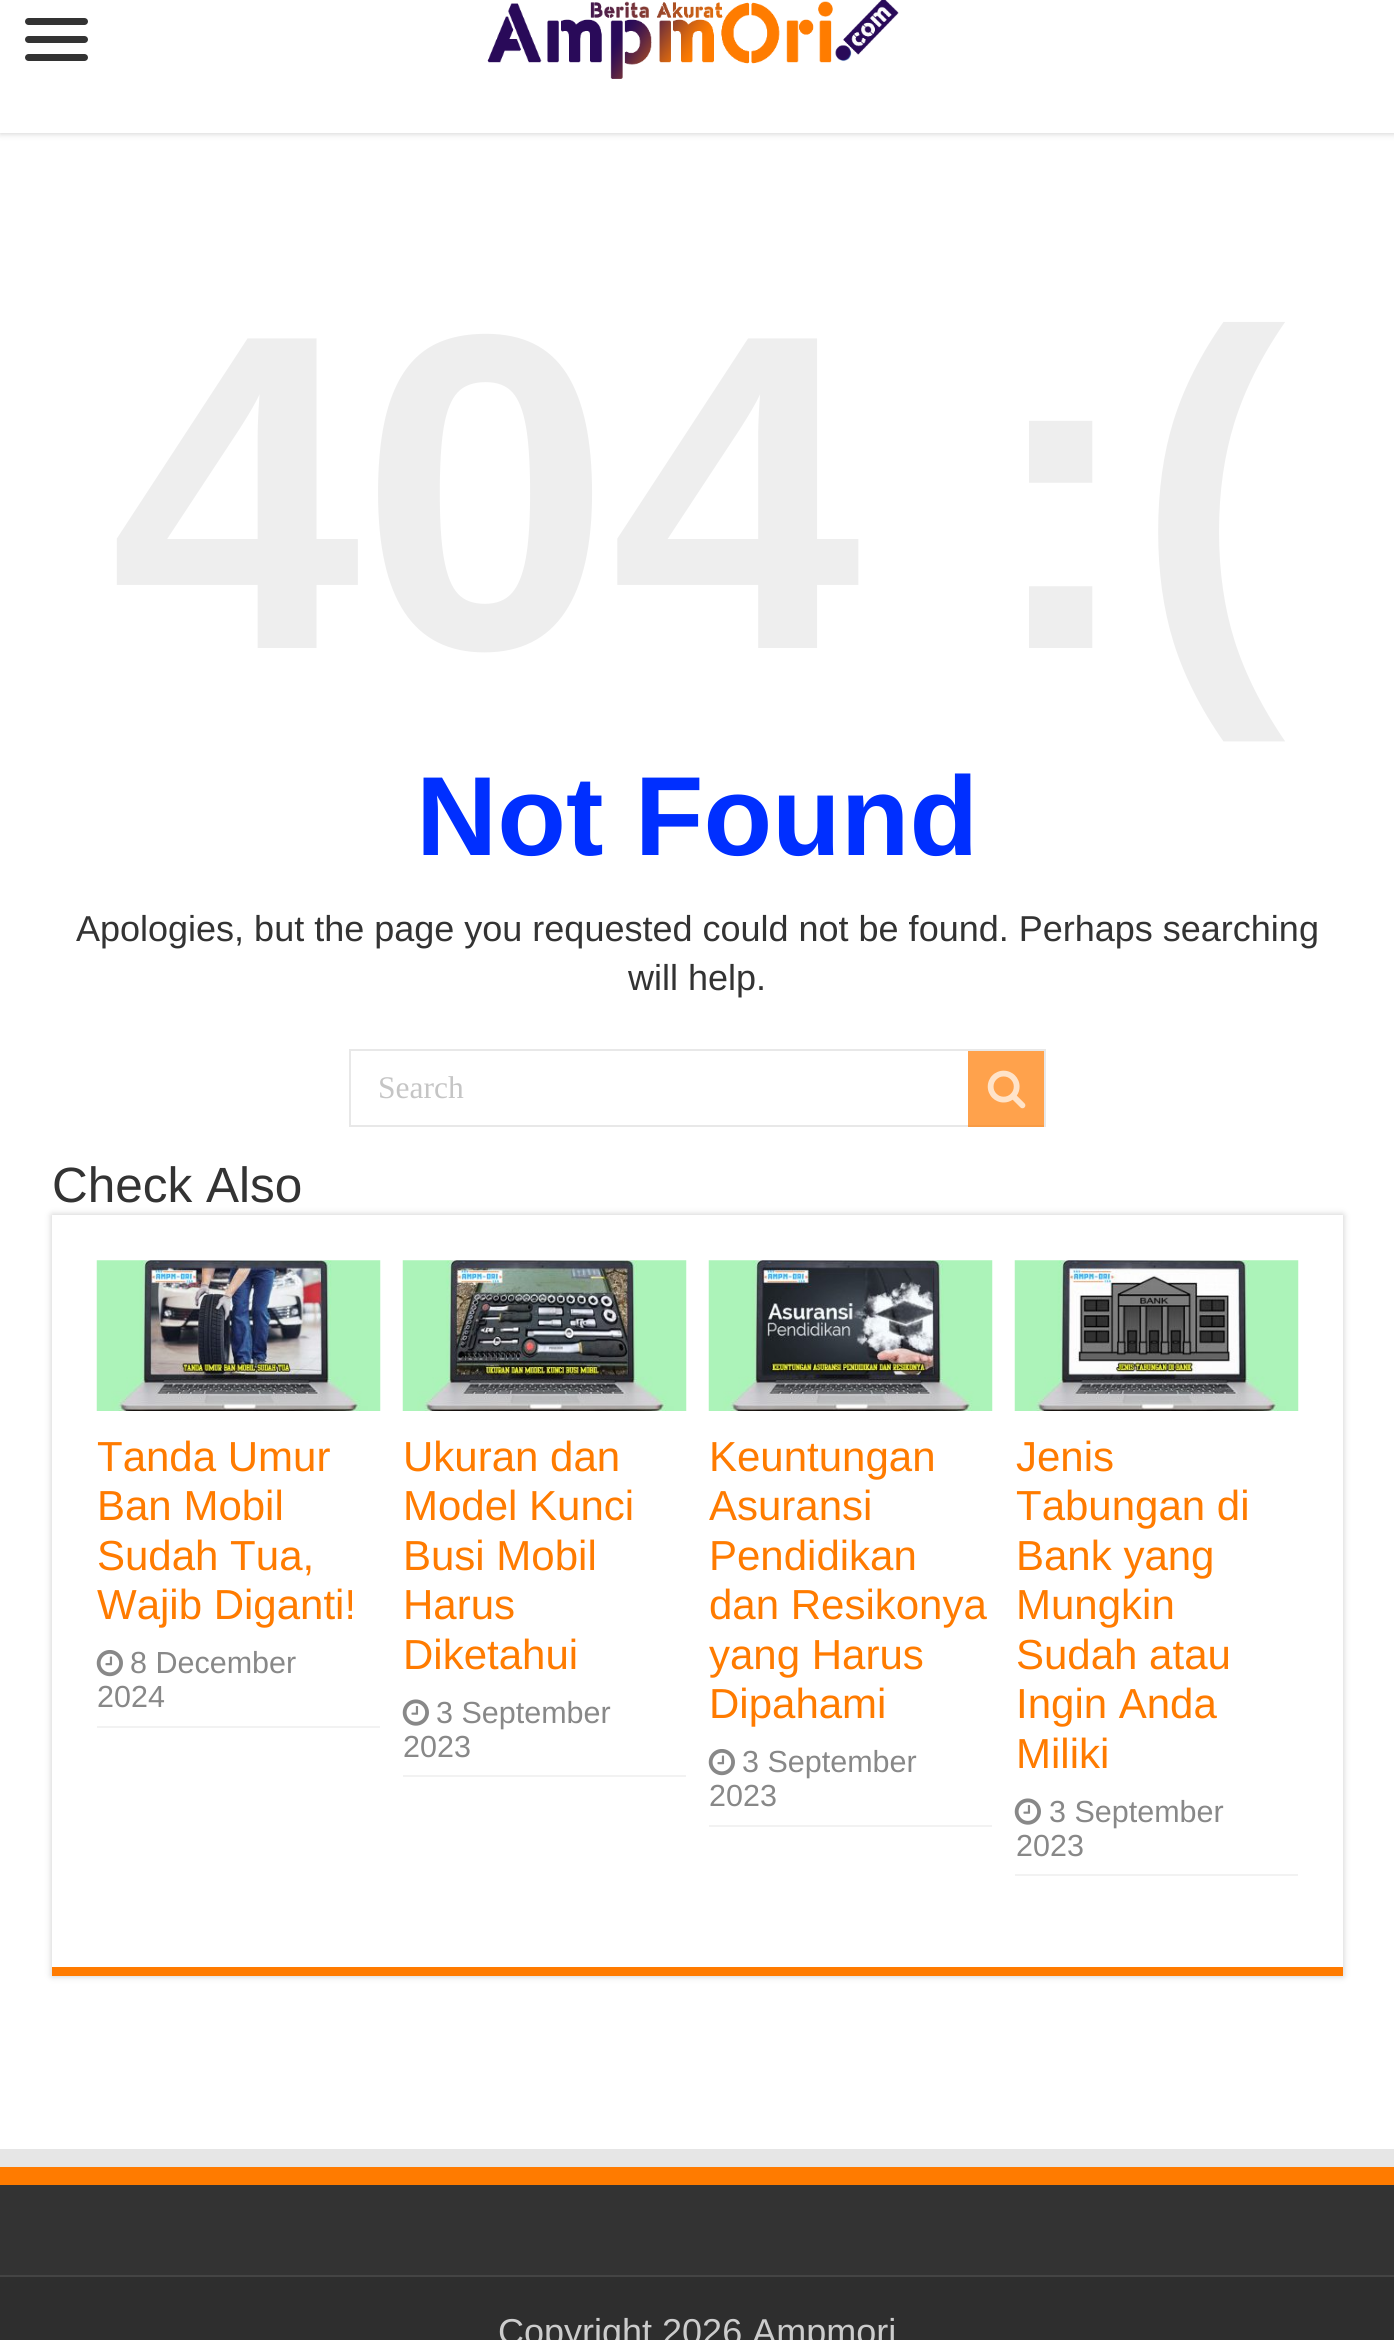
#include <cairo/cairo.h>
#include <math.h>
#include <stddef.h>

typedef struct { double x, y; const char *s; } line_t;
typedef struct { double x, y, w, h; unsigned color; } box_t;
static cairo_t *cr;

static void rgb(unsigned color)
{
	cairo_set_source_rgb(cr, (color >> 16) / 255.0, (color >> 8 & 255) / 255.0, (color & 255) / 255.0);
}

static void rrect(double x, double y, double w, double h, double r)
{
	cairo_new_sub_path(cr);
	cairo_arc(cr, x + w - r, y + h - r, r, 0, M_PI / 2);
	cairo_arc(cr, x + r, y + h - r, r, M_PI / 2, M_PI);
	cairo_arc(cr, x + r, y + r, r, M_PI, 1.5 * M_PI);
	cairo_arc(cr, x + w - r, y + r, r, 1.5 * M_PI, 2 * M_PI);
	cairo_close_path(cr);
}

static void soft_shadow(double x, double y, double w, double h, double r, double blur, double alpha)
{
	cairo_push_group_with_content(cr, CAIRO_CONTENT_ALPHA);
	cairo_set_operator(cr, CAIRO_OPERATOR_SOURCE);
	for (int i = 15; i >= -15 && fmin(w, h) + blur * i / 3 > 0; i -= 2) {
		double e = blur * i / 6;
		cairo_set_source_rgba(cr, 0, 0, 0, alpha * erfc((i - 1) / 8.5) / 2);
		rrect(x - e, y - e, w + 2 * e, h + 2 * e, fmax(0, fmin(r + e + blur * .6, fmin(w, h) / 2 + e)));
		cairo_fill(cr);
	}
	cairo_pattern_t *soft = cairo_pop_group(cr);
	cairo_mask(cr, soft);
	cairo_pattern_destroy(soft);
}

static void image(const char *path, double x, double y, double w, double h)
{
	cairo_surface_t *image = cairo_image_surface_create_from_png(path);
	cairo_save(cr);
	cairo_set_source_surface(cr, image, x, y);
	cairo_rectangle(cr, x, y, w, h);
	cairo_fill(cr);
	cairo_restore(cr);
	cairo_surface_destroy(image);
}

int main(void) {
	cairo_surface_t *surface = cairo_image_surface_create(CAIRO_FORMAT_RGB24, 1394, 2340);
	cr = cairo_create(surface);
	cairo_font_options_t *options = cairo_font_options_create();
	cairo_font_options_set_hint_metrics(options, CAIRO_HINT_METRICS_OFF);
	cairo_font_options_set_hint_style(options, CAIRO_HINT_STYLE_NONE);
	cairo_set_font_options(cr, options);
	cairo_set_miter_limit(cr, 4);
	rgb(0xffffff);
	cairo_paint(cr);
	rgb(0xcacaca);
	soft_shadow(0, -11, 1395, 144, 0, 3.5, 1);
	rgb(0xffffff);
	cairo_rectangle(cr, 0, 0, 1394, 133);
	cairo_fill(cr);
	rgb(0x333333);
	rrect(25, 18, 63, 7, 3.5);
	cairo_fill(cr);
	rrect(25, 36, 63, 7, 3.5);
	cairo_fill(cr);
	rrect(25, 54, 63, 7, 3.5);
	cairo_fill(cr);
	image("img/1.png", 487, 0, 412, 79);
	cairo_rectangle(cr, 350, 1050, 695, 76);
	rgb(0xe8e8e8);
	cairo_stroke(cr);
	cairo_set_source_rgba(cr, 1, 0.482, 0, 0.7);
	cairo_rectangle(cr, 968, 1051, 76, 76);
	cairo_fill(cr);
	image("img/2.png", 987, 1070, 39, 39);
	rgb(0xcacaca);
	soft_shadow(52, 1215, 1291, 761, 0, 3.5, 1);
	rgb(0xffffff);
	cairo_rectangle(cr, 52, 1215, 1291, 752);
	cairo_fill(cr);
	rgb(0xff7b00);
	cairo_rectangle(cr, 52, 1967, 1291, 9);
	cairo_fill(cr);
	image("img/3.png", 96, 1260, 285, 151);
	rgb(0xf2f2f2);
	cairo_rectangle(cr, 97, 1726, 283, 2);
	cairo_fill(cr);
	image("img/4.png", 96, 1650, 27, 27);
	image("img/5.png", 402, 1260, 285, 151);
	cairo_rectangle(cr, 403, 1775, 283, 2);
	cairo_fill(cr);
	image("img/6.png", 402, 1699, 27, 27);
	image("img/7.png", 708, 1260, 285, 151);
	cairo_rectangle(cr, 709, 1825, 283, 2);
	cairo_fill(cr);
	image("img/4.png", 708, 1749, 27, 27);
	image("img/8.png", 1014, 1260, 285, 151);
	cairo_rectangle(cr, 1015, 1874, 283, 2);
	cairo_fill(cr);
	image("img/6.png", 1014, 1798, 27, 27);
	{
		static const box_t items[] = {
			{0, 2149, 1394, 18, 0xe6e6e6},
			{0, 2185, 1394, 90, 0x333333},
			{0, 2167, 1394, 18, 0xff7b00},
			{0, 2277, 1394, 63, 0x2e2e2e},
			{0, 2275, 1394, 2, 0x444444},
		};
		for (size_t i = 0; i < sizeof items / sizeof *items; i++) {
			rgb(items[i].color);
			cairo_rectangle(cr, items[i].x, items[i].y, items[i].w, items[i].h);
			cairo_fill(cr);
		}
	}
	cairo_select_font_face(cr, "Liberation Sans", CAIRO_FONT_SLANT_NORMAL, CAIRO_FONT_WEIGHT_BOLD);
	cairo_set_font_size(cr, 450);
	rgb(0xeeeeee);
	cairo_move_to(cr, 110, 648);
	cairo_show_text(cr, "404 :(");
	cairo_set_font_size(cr, 112.5);
	rgb(0x002fff);
	cairo_move_to(cr, 416, 855);
	cairo_show_text(cr, "Not Found");
	cairo_select_font_face(cr, "Liberation Sans", CAIRO_FONT_SLANT_NORMAL, CAIRO_FONT_WEIGHT_NORMAL);
	cairo_set_font_size(cr, 36);
	rgb(0x333333);
	cairo_move_to(cr, 76, 941);
	cairo_show_text(cr, "Apologies, but the page you requested could not be found. Perhaps searching");
	cairo_move_to(cr, 628, 990);
	cairo_show_text(cr, "will help.");
	cairo_select_font_face(cr, "Liberation Serif", CAIRO_FONT_SLANT_NORMAL, CAIRO_FONT_WEIGHT_NORMAL);
	cairo_set_font_size(cr, 31.5);
	rgb(0xc5c5c5);
	cairo_move_to(cr, 378, 1098);
	cairo_show_text(cr, "Search");
	cairo_select_font_face(cr, "Liberation Sans", CAIRO_FONT_SLANT_NORMAL, CAIRO_FONT_WEIGHT_NORMAL);
	cairo_set_font_size(cr, 49.5);
	rgb(0x333333);
	cairo_move_to(cr, 52, 1202);
	cairo_show_text(cr, "Check Also");
	cairo_set_font_size(cr, 42);
	rgb(0xff7b00);
	{
		static const line_t items[] = {
			{97, 1471, "Tanda Umur"},
			{97, 1520, "Ban Mobil"},
			{97, 1570, "Sudah Tua,"},
			{97, 1619, "Wajib Diganti!"},
		};
		for (size_t i = 0; i < sizeof items / sizeof *items; i++) {
			cairo_move_to(cr, items[i].x, items[i].y);
			cairo_show_text(cr, items[i].s);
		}
	}
	cairo_set_font_size(cr, 30.5);
	rgb(0x888888);
	cairo_move_to(cr, 130, 1673);
	cairo_show_text(cr, "8 December");
	cairo_move_to(cr, 97, 1707);
	cairo_show_text(cr, "2024");
	cairo_set_font_size(cr, 42);
	rgb(0xff7b00);
	{
		static const line_t items[] = {
			{403, 1471, "Ukuran dan"},
			{403, 1520, "Model Kunci"},
			{403, 1570, "Busi Mobil"},
			{403, 1619, "Harus"},
			{403, 1669, "Diketahui"},
		};
		for (size_t i = 0; i < sizeof items / sizeof *items; i++) {
			cairo_move_to(cr, items[i].x, items[i].y);
			cairo_show_text(cr, items[i].s);
		}
	}
	cairo_set_font_size(cr, 30.5);
	rgb(0x888888);
	cairo_move_to(cr, 436, 1723);
	cairo_show_text(cr, "3 September");
	cairo_move_to(cr, 403, 1757);
	cairo_show_text(cr, "2023");
	cairo_set_font_size(cr, 42);
	rgb(0xff7b00);
	{
		static const line_t items[] = {
			{709, 1471, "Keuntungan"},
			{709, 1520, "Asuransi"},
			{709, 1570, "Pendidikan"},
			{709, 1619, "dan Resikonya"},
			{709, 1669, "yang Harus"},
			{709, 1718, "Dipahami"},
		};
		for (size_t i = 0; i < sizeof items / sizeof *items; i++) {
			cairo_move_to(cr, items[i].x, items[i].y);
			cairo_show_text(cr, items[i].s);
		}
	}
	cairo_set_font_size(cr, 30.5);
	rgb(0x888888);
	cairo_move_to(cr, 742, 1772);
	cairo_show_text(cr, "3 September");
	cairo_move_to(cr, 709, 1806);
	cairo_show_text(cr, "2023");
	cairo_set_font_size(cr, 42);
	rgb(0xff7b00);
	{
		static const line_t items[] = {
			{1016, 1471, "Jenis"},
			{1016, 1520, "Tabungan di"},
			{1016, 1570, "Bank yang"},
			{1016, 1619, "Mungkin"},
			{1016, 1669, "Sudah atau"},
			{1016, 1718, "Ingin Anda"},
			{1016, 1768, "Miliki"},
		};
		for (size_t i = 0; i < sizeof items / sizeof *items; i++) {
			cairo_move_to(cr, items[i].x, items[i].y);
			cairo_show_text(cr, items[i].s);
		}
	}
	cairo_set_font_size(cr, 30.5);
	rgb(0x888888);
	cairo_move_to(cr, 1049, 1822);
	cairo_show_text(cr, "3 September");
	cairo_move_to(cr, 1016, 1856);
	cairo_show_text(cr, "2023");
	cairo_set_font_size(cr, 36);
	rgb(0xcccccc);
	cairo_move_to(cr, 498, 2344);
	cairo_show_text(cr, "Copyright 2026 Ampmori");
	cairo_surface_write_to_png(surface, "page.png");
	cairo_font_options_destroy(options);
	cairo_destroy(cr);
	cairo_surface_destroy(surface);
	return 0;
}
